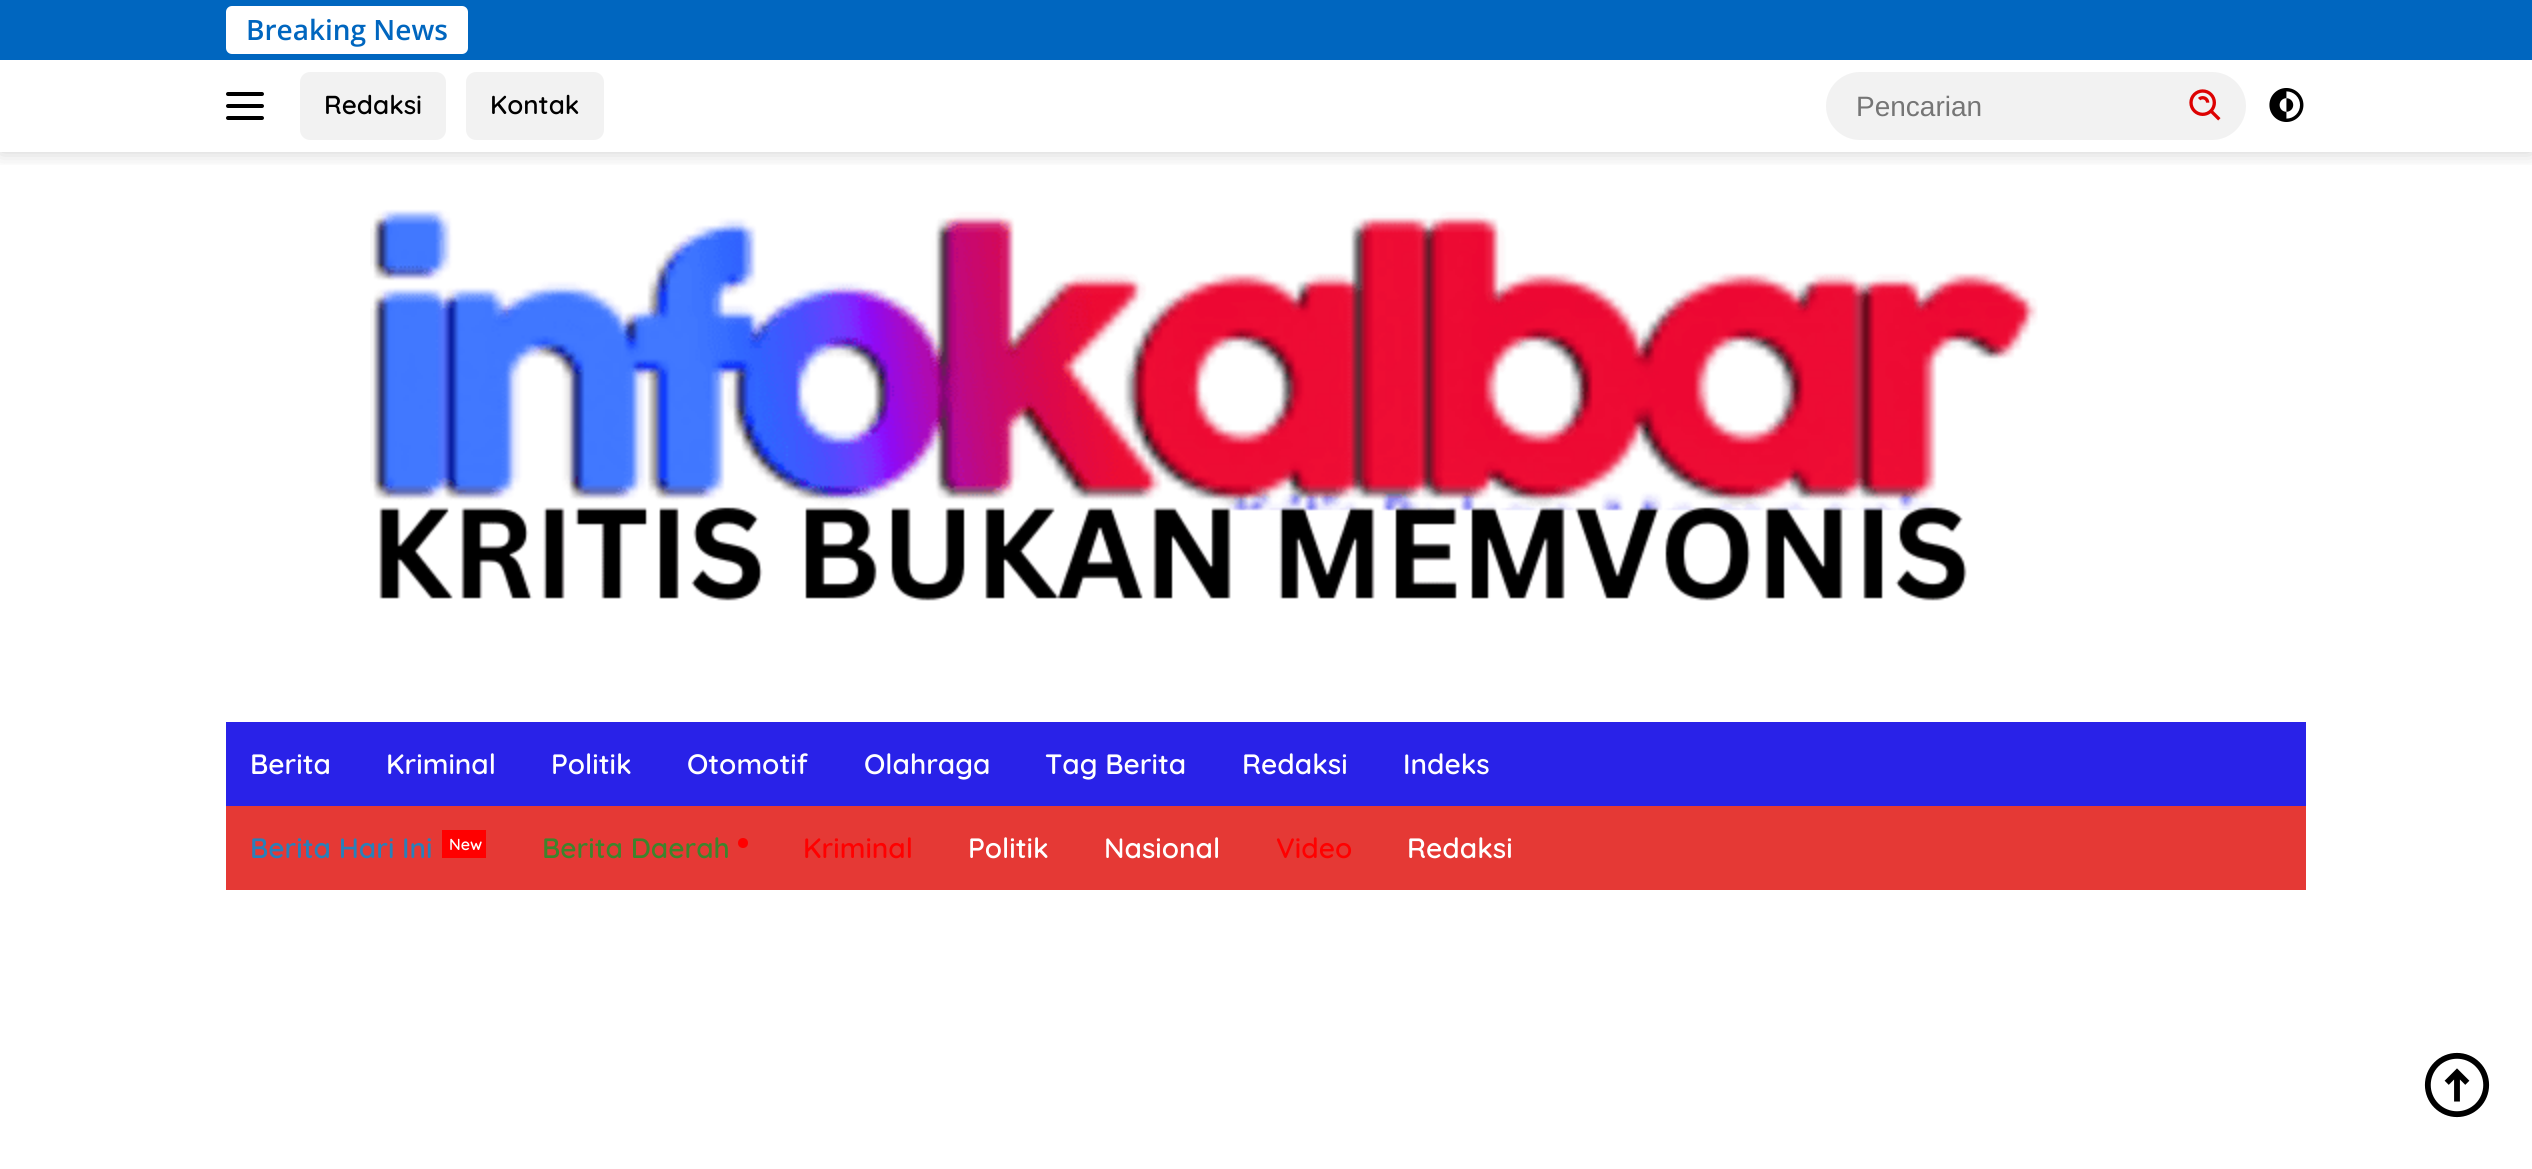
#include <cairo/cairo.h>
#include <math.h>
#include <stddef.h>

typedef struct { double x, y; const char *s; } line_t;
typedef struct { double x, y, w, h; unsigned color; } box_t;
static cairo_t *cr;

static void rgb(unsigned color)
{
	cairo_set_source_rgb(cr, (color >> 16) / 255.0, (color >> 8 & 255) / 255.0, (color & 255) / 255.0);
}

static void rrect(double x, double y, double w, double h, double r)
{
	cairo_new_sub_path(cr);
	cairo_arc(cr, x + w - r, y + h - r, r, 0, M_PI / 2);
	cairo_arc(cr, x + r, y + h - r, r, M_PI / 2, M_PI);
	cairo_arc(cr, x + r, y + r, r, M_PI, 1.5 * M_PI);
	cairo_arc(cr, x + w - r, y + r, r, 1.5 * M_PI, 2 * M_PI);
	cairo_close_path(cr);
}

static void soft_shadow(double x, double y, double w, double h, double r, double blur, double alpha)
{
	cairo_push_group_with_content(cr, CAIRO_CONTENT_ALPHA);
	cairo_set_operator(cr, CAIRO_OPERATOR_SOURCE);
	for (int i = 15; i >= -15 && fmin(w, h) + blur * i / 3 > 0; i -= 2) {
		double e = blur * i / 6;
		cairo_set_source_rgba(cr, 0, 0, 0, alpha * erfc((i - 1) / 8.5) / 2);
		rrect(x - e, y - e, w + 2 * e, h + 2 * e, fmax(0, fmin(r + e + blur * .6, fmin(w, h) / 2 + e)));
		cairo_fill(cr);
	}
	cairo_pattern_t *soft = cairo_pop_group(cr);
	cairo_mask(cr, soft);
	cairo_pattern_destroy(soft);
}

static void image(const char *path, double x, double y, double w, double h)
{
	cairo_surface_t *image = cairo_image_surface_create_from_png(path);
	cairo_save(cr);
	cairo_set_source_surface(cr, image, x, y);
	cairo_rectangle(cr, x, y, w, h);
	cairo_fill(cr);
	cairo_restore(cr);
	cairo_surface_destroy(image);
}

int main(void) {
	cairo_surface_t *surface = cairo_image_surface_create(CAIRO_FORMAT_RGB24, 2532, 1169);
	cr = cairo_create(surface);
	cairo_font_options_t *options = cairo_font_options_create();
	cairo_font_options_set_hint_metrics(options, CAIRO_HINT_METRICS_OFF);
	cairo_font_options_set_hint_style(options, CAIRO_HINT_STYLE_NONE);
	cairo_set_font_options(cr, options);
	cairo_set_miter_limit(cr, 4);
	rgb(0xffffff);
	cairo_paint(cr);
	cairo_save(cr);
	cairo_rectangle(cr, 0, 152, 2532, 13);
	cairo_clip(cr);
	rgb(0x000000);
	soft_shadow(0, 0, 2532, 152, 0, 10, 0.2);
	cairo_restore(cr);
	rgb(0x0066bf);
	cairo_rectangle(cr, 0, 0, 2532, 60);
	cairo_fill(cr);
	rgb(0xffffff);
	rrect(226, 6, 242, 48, 6);
	cairo_fill(cr);
	rgb(0x000000);
	rrect(226, 92, 38, 4, 2);
	cairo_fill(cr);
	rrect(226, 104, 38, 4, 2);
	cairo_fill(cr);
	rrect(226, 116, 38, 4, 2);
	cairo_fill(cr);
	rgb(0xf2f2f2);
	rrect(300, 72, 146, 68, 10);
	cairo_fill(cr);
	rrect(466, 72, 138, 68, 10);
	cairo_fill(cr);
	rrect(1826, 72, 420, 68, 34);
	cairo_fill(cr);
	image("img/1.png", 2189, 89, 32, 32);
	image("img/2.png", 2269, 88, 35, 34);
	image("img/3.png", 370, 209, 1668, 392);
	{
		static const box_t items[] = {
			{226, 806, 2080, 84, 0xe53935},
			{226, 722, 2080, 84, 0x2922e8},
			{442, 830, 44, 28, 0xff0000},
		};
		for (size_t i = 0; i < sizeof items / sizeof *items; i++) {
			rgb(items[i].color);
			cairo_rectangle(cr, items[i].x, items[i].y, items[i].w, items[i].h);
			cairo_fill(cr);
		}
	}
	cairo_arc(cr, 743, 843, 5, 0, 2 * M_PI);
	cairo_fill(cr);
	image("img/4.png", 2424, 1052, 66, 66);
	cairo_select_font_face(cr, "Open Sans SemiBold", CAIRO_FONT_SLANT_NORMAL, CAIRO_FONT_WEIGHT_NORMAL);
	cairo_set_font_size(cr, 28);
	rgb(0x0066bf);
	cairo_move_to(cr, 246, 40);
	cairo_show_text(cr, "Breaking News");
	cairo_select_font_face(cr, "Quicksand SemiBold", CAIRO_FONT_SLANT_NORMAL, CAIRO_FONT_WEIGHT_NORMAL);
	cairo_set_font_size(cr, 26);
	rgb(0x000000);
	cairo_move_to(cr, 324, 114);
	cairo_show_text(cr, "Redaksi");
	cairo_move_to(cr, 490, 114);
	cairo_show_text(cr, "Kontak");
	cairo_select_font_face(cr, "Liberation Sans", CAIRO_FONT_SLANT_NORMAL, CAIRO_FONT_WEIGHT_NORMAL);
	cairo_set_font_size(cr, 28);
	rgb(0x757575);
	cairo_move_to(cr, 1856, 116);
	cairo_show_text(cr, "Pencarian");
	cairo_select_font_face(cr, "Quicksand SemiBold", CAIRO_FONT_SLANT_NORMAL, CAIRO_FONT_WEIGHT_NORMAL);
	rgb(0xffffff);
	{
		static const line_t items[] = {
			{250, 774, "Berita"},
			{386, 774, "Kriminal"},
			{551, 774, "Politik"},
			{687, 774, "Otomotif"},
			{864, 774, "Olahraga"},
			{1045, 774, "Tag Berita"},
			{1242, 774, "Redaksi"},
			{1403, 774, "Indeks"},
		};
		for (size_t i = 0; i < sizeof items / sizeof *items; i++) {
			cairo_move_to(cr, items[i].x, items[i].y);
			cairo_show_text(cr, items[i].s);
		}
	}
	rgb(0x2980b9);
	cairo_move_to(cr, 250, 858);
	cairo_show_text(cr, "Berita Hari Ini");
	cairo_set_font_size(cr, 16);
	rgb(0xffffff);
	cairo_move_to(cr, 449, 850);
	cairo_show_text(cr, "New");
	cairo_set_font_size(cr, 28);
	rgb(0x3d842c);
	cairo_move_to(cr, 542, 858);
	cairo_show_text(cr, "Berita Daerah");
	rgb(0xff0000);
	cairo_move_to(cr, 803, 858);
	cairo_show_text(cr, "Kriminal");
	rgb(0xffffff);
	cairo_move_to(cr, 968, 858);
	cairo_show_text(cr, "Politik");
	cairo_move_to(cr, 1104, 858);
	cairo_show_text(cr, "Nasional");
	rgb(0xff0000);
	cairo_move_to(cr, 1276, 858);
	cairo_show_text(cr, "Video");
	rgb(0xffffff);
	cairo_move_to(cr, 1407, 858);
	cairo_show_text(cr, "Redaksi");
	cairo_surface_write_to_png(surface, "page.png");
	cairo_font_options_destroy(options);
	cairo_destroy(cr);
	cairo_surface_destroy(surface);
	return 0;
}
